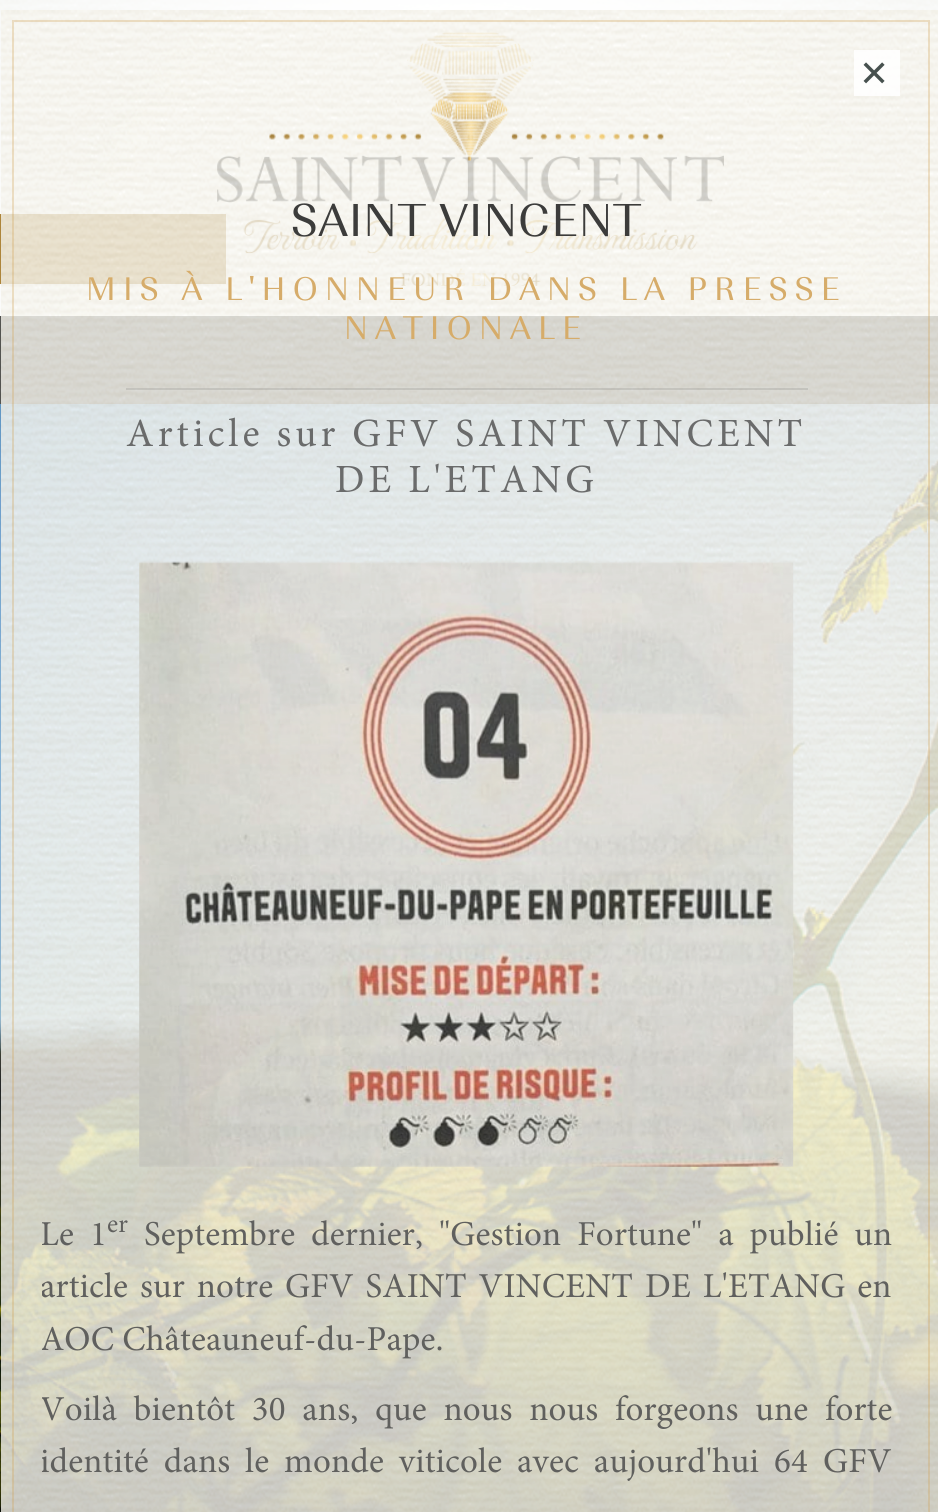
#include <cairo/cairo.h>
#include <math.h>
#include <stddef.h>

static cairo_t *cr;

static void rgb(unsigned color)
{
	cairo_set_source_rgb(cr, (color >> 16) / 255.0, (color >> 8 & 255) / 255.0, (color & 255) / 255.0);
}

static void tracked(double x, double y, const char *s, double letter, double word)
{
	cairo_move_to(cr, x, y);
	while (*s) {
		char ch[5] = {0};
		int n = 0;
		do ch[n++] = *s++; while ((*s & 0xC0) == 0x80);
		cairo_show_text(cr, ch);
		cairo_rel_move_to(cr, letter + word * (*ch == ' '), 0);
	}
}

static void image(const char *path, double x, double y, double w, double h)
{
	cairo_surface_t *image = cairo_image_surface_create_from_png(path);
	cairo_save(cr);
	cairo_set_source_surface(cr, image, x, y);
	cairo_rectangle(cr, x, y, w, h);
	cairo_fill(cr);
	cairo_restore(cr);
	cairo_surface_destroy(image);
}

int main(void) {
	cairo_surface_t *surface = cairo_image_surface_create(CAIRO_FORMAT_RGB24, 938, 1512);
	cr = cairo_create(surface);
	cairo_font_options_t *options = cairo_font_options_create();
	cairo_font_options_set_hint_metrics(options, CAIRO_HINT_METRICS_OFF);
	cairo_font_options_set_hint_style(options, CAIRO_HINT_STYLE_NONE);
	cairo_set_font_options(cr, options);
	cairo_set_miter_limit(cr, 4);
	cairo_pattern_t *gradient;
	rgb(0xffffff);
	cairo_paint(cr);
	image("img/1.png", 0, 0, 938, 1512);
	gradient = cairo_pattern_create_linear(0, 1512, 0, 1012);
	cairo_pattern_add_color_stop_rgba(gradient, 0, 0, 0, 0, 0.7);
	cairo_pattern_add_color_stop_rgba(gradient, 0.5, 0, 0, 0, 0.3);
	cairo_pattern_add_color_stop_rgba(gradient, 1, 0, 0, 0, 0);
	cairo_set_source(cr, gradient);
	cairo_pattern_destroy(gradient);
	cairo_rectangle(cr, 0, 1030, 938, 482);
	cairo_fill(cr);
	image("img/2.png", 0, 0, 938, 316);
	gradient = cairo_pattern_create_radial(469, 323, 0, 469, 323, 1000);
	cairo_pattern_add_color_stop_rgba(gradient, 0.3, 1, 1, 1, 1);
	cairo_pattern_add_color_stop_rgba(gradient, 1, 1, 1, 1, 0);
	cairo_set_source(cr, gradient);
	cairo_pattern_destroy(gradient);
	cairo_rectangle(cr, 0, 0, 938, 316);
	cairo_fill(cr);
	image("img/3.png", 217, 32, 507, 254);
	rgb(0xad853a);
	cairo_rectangle(cr, 0, 214, 226, 70);
	cairo_fill(cr);
	image("img/4.png", 0, 316, 938, 88);
	image("img/5.png", 1, 10, 937, 1502);
	cairo_rectangle(cr, 13, 21, 916, 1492);
	cairo_set_source_rgba(cr, 0.82, 0.631, 0.337, 0.3);
	cairo_stroke(cr);
	cairo_set_source_rgba(cr, 1, 1, 1, 0.87);
	cairo_rectangle(cr, 854, 50, 46, 46);
	cairo_fill(cr);
	image("img/6.png", 269, 92, 395, 69);
	cairo_set_source_rgba(cr, 0, 0, 0, 0.1);
	cairo_rectangle(cr, 126, 388, 682, 2);
	cairo_fill(cr);
	image("img/7.png", 139, 561, 655, 606);
	cairo_select_font_face(cr, "DejaVu Sans", CAIRO_FONT_SLANT_NORMAL, CAIRO_FONT_WEIGHT_NORMAL);
	cairo_set_font_size(cr, 36);
	rgb(0x47514f);
	tracked(859, 86, "✕", 1, 0);
	cairo_select_font_face(cr, "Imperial", CAIRO_FONT_SLANT_NORMAL, CAIRO_FONT_WEIGHT_NORMAL);
	cairo_set_font_size(cr, 48);
	rgb(0x3c3c3b);
	tracked(291, 236, "SAINT VINCENT", 1, 0);
	cairo_set_font_size(cr, 34);
	rgb(0xd6ac6a);
	tracked(86, 300, "MIS À L'HONNEUR DANS LA PRESSE", 7.2, 0);
	tracked(344, 339, "NATIONALE", 7.2, 0);
	cairo_select_font_face(cr, "Minion", CAIRO_FONT_SLANT_NORMAL, CAIRO_FONT_WEIGHT_NORMAL);
	cairo_set_font_size(cr, 40);
	rgb(0x6a6b6b);
	tracked(126, 446, "Article sur GFV SAINT VINCENT", 4, 0);
	tracked(335, 492, "DE L'ETANG", 4, 0);
	cairo_save(cr);
	cairo_rectangle(cr, 42, 50, 856, 1462);
	cairo_clip(cr);
	cairo_set_font_size(cr, 35);
	rgb(0x60605e);
	tracked(40, 1245, "Le 1", 0.17, 7.75);
	cairo_restore(cr);
	cairo_set_font_size(cr, 26);
	rgb(0x60605e);
	tracked(107, 1232, "er", 0.17, 0);
	cairo_set_font_size(cr, 35);
	tracked(144, 1245, "Septembre dernier, \"Gestion Fortune\" a publié un", 0.17, 7.75);
	cairo_save(cr);
	cairo_rectangle(cr, 42, 50, 856, 1462);
	cairo_clip(cr);
	tracked(40, 1297, "article sur notre GFV SAINT VINCENT DE L'ETANG en", 0.17, 3.75);
	tracked(40, 1350, "AOC Châteauneuf-du-Pape.", 0.17, 0);
	tracked(40, 1420, "Voilà bientôt 30 ans, que nous nous forgeons une forte", 0.17, 8.5);
	tracked(40, 1472, "identité dans le monde viticole avec aujourd'hui", 0.17, 6.75);
	cairo_restore(cr);
	tracked(774, 1472, "64 GFV", 0.17, 7);
	cairo_surface_write_to_png(surface, "page.png");
	cairo_font_options_destroy(options);
	cairo_destroy(cr);
	cairo_surface_destroy(surface);
	return 0;
}
